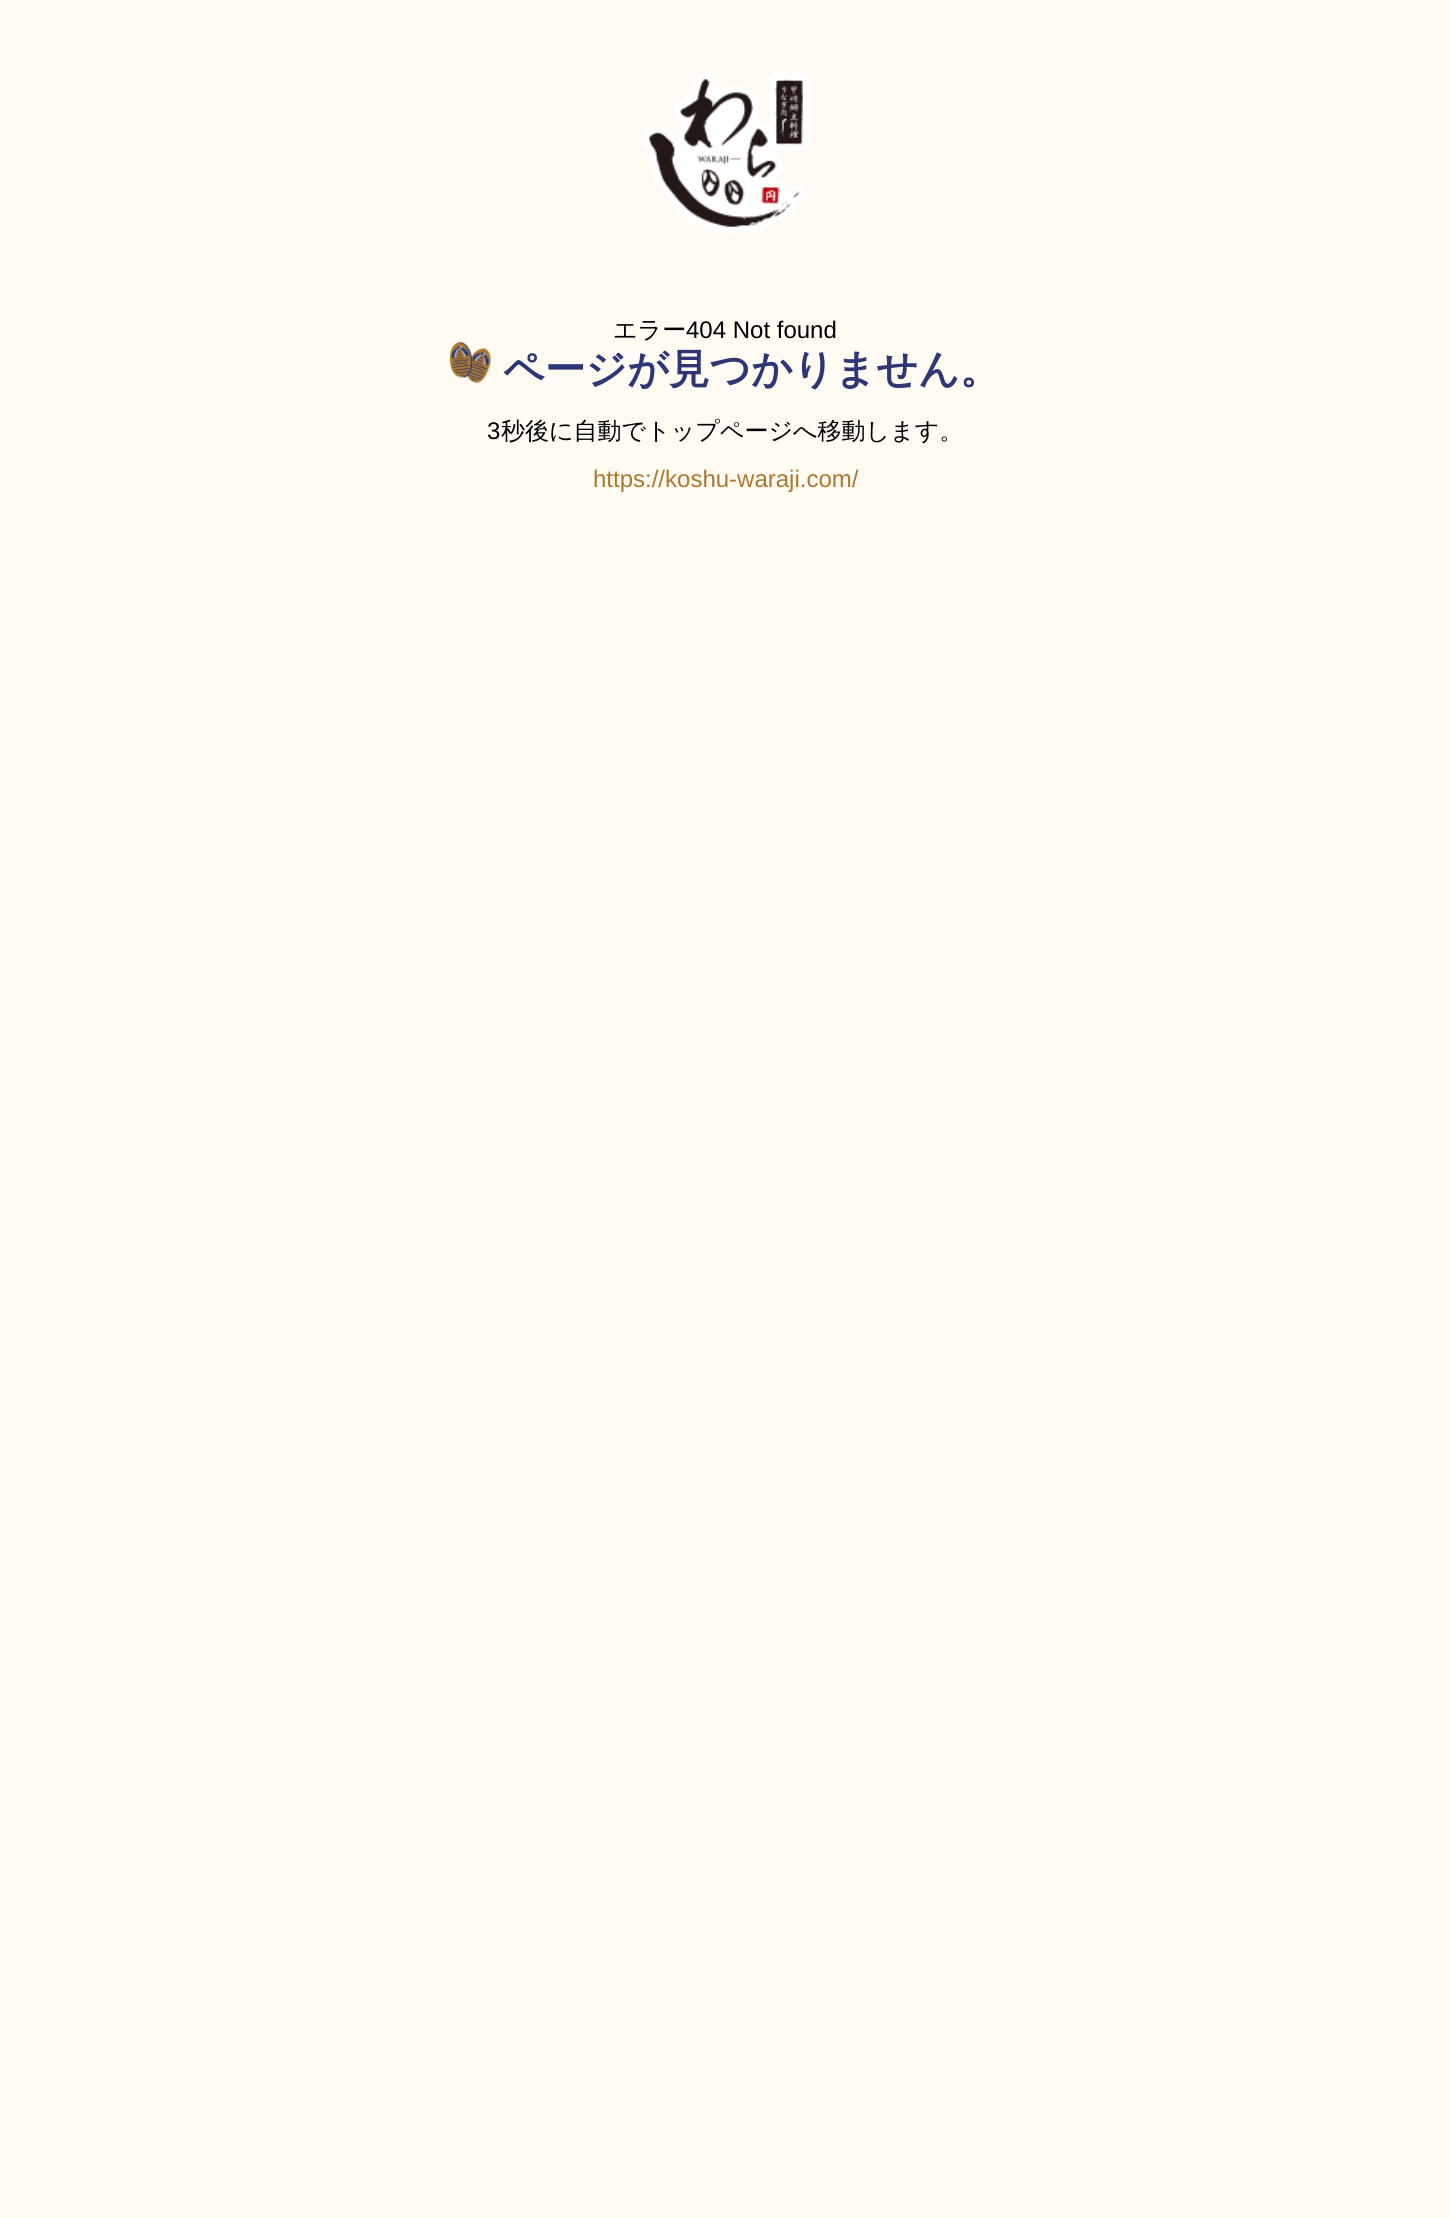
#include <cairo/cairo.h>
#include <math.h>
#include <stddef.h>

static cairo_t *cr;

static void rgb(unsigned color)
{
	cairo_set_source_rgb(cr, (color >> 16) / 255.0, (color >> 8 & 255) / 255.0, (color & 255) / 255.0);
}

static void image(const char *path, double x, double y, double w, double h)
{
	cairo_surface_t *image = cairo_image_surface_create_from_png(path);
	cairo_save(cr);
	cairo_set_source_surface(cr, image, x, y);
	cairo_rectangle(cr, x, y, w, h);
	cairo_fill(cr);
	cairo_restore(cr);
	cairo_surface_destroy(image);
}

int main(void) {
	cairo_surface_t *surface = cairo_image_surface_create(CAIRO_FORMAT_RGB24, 1450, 2218);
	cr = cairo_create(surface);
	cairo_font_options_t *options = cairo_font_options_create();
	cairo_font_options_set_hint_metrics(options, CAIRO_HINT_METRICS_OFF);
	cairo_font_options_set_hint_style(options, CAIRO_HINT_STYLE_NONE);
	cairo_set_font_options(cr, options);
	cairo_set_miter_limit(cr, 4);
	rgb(0xfffbf3);
	cairo_paint(cr);
	image("img/1.png", 642, 72, 168, 162);
	image("img/2.png", 450, 342, 41, 41);
	cairo_select_font_face(cr, "WenQuanYi Zen Hei Medium", CAIRO_FONT_SLANT_NORMAL, CAIRO_FONT_WEIGHT_NORMAL);
	cairo_set_font_size(cr, 24);
	rgb(0x000000);
	cairo_move_to(cr, 613, 338);
	cairo_show_text(cr, "エラー");
	cairo_select_font_face(cr, "Liberation Sans", CAIRO_FONT_SLANT_NORMAL, CAIRO_FONT_WEIGHT_NORMAL);
	cairo_move_to(cr, 686, 338);
	cairo_show_text(cr, "404 Not found");
	cairo_select_font_face(cr, "WenQuanYi Zen Hei", CAIRO_FONT_SLANT_NORMAL, CAIRO_FONT_WEIGHT_BOLD);
	cairo_set_font_size(cr, 40.75);
	rgb(0x2e3776);
	cairo_move_to(cr, 503, 383);
	cairo_show_text(cr, "ページが見つかりません。");
	cairo_select_font_face(cr, "Liberation Sans", CAIRO_FONT_SLANT_NORMAL, CAIRO_FONT_WEIGHT_NORMAL);
	cairo_set_font_size(cr, 24);
	rgb(0x000000);
	cairo_move_to(cr, 487, 439);
	cairo_show_text(cr, "3");
	cairo_select_font_face(cr, "WenQuanYi Zen Hei Medium", CAIRO_FONT_SLANT_NORMAL, CAIRO_FONT_WEIGHT_NORMAL);
	cairo_move_to(cr, 501, 439);
	cairo_show_text(cr, "秒後に自動でトップページへ移動します。");
	cairo_select_font_face(cr, "Liberation Sans", CAIRO_FONT_SLANT_NORMAL, CAIRO_FONT_WEIGHT_NORMAL);
	rgb(0xab792f);
	cairo_move_to(cr, 593, 487);
	cairo_show_text(cr, "https://koshu-waraji.com/");
	cairo_surface_write_to_png(surface, "page.png");
	cairo_font_options_destroy(options);
	cairo_destroy(cr);
	cairo_surface_destroy(surface);
	return 0;
}
